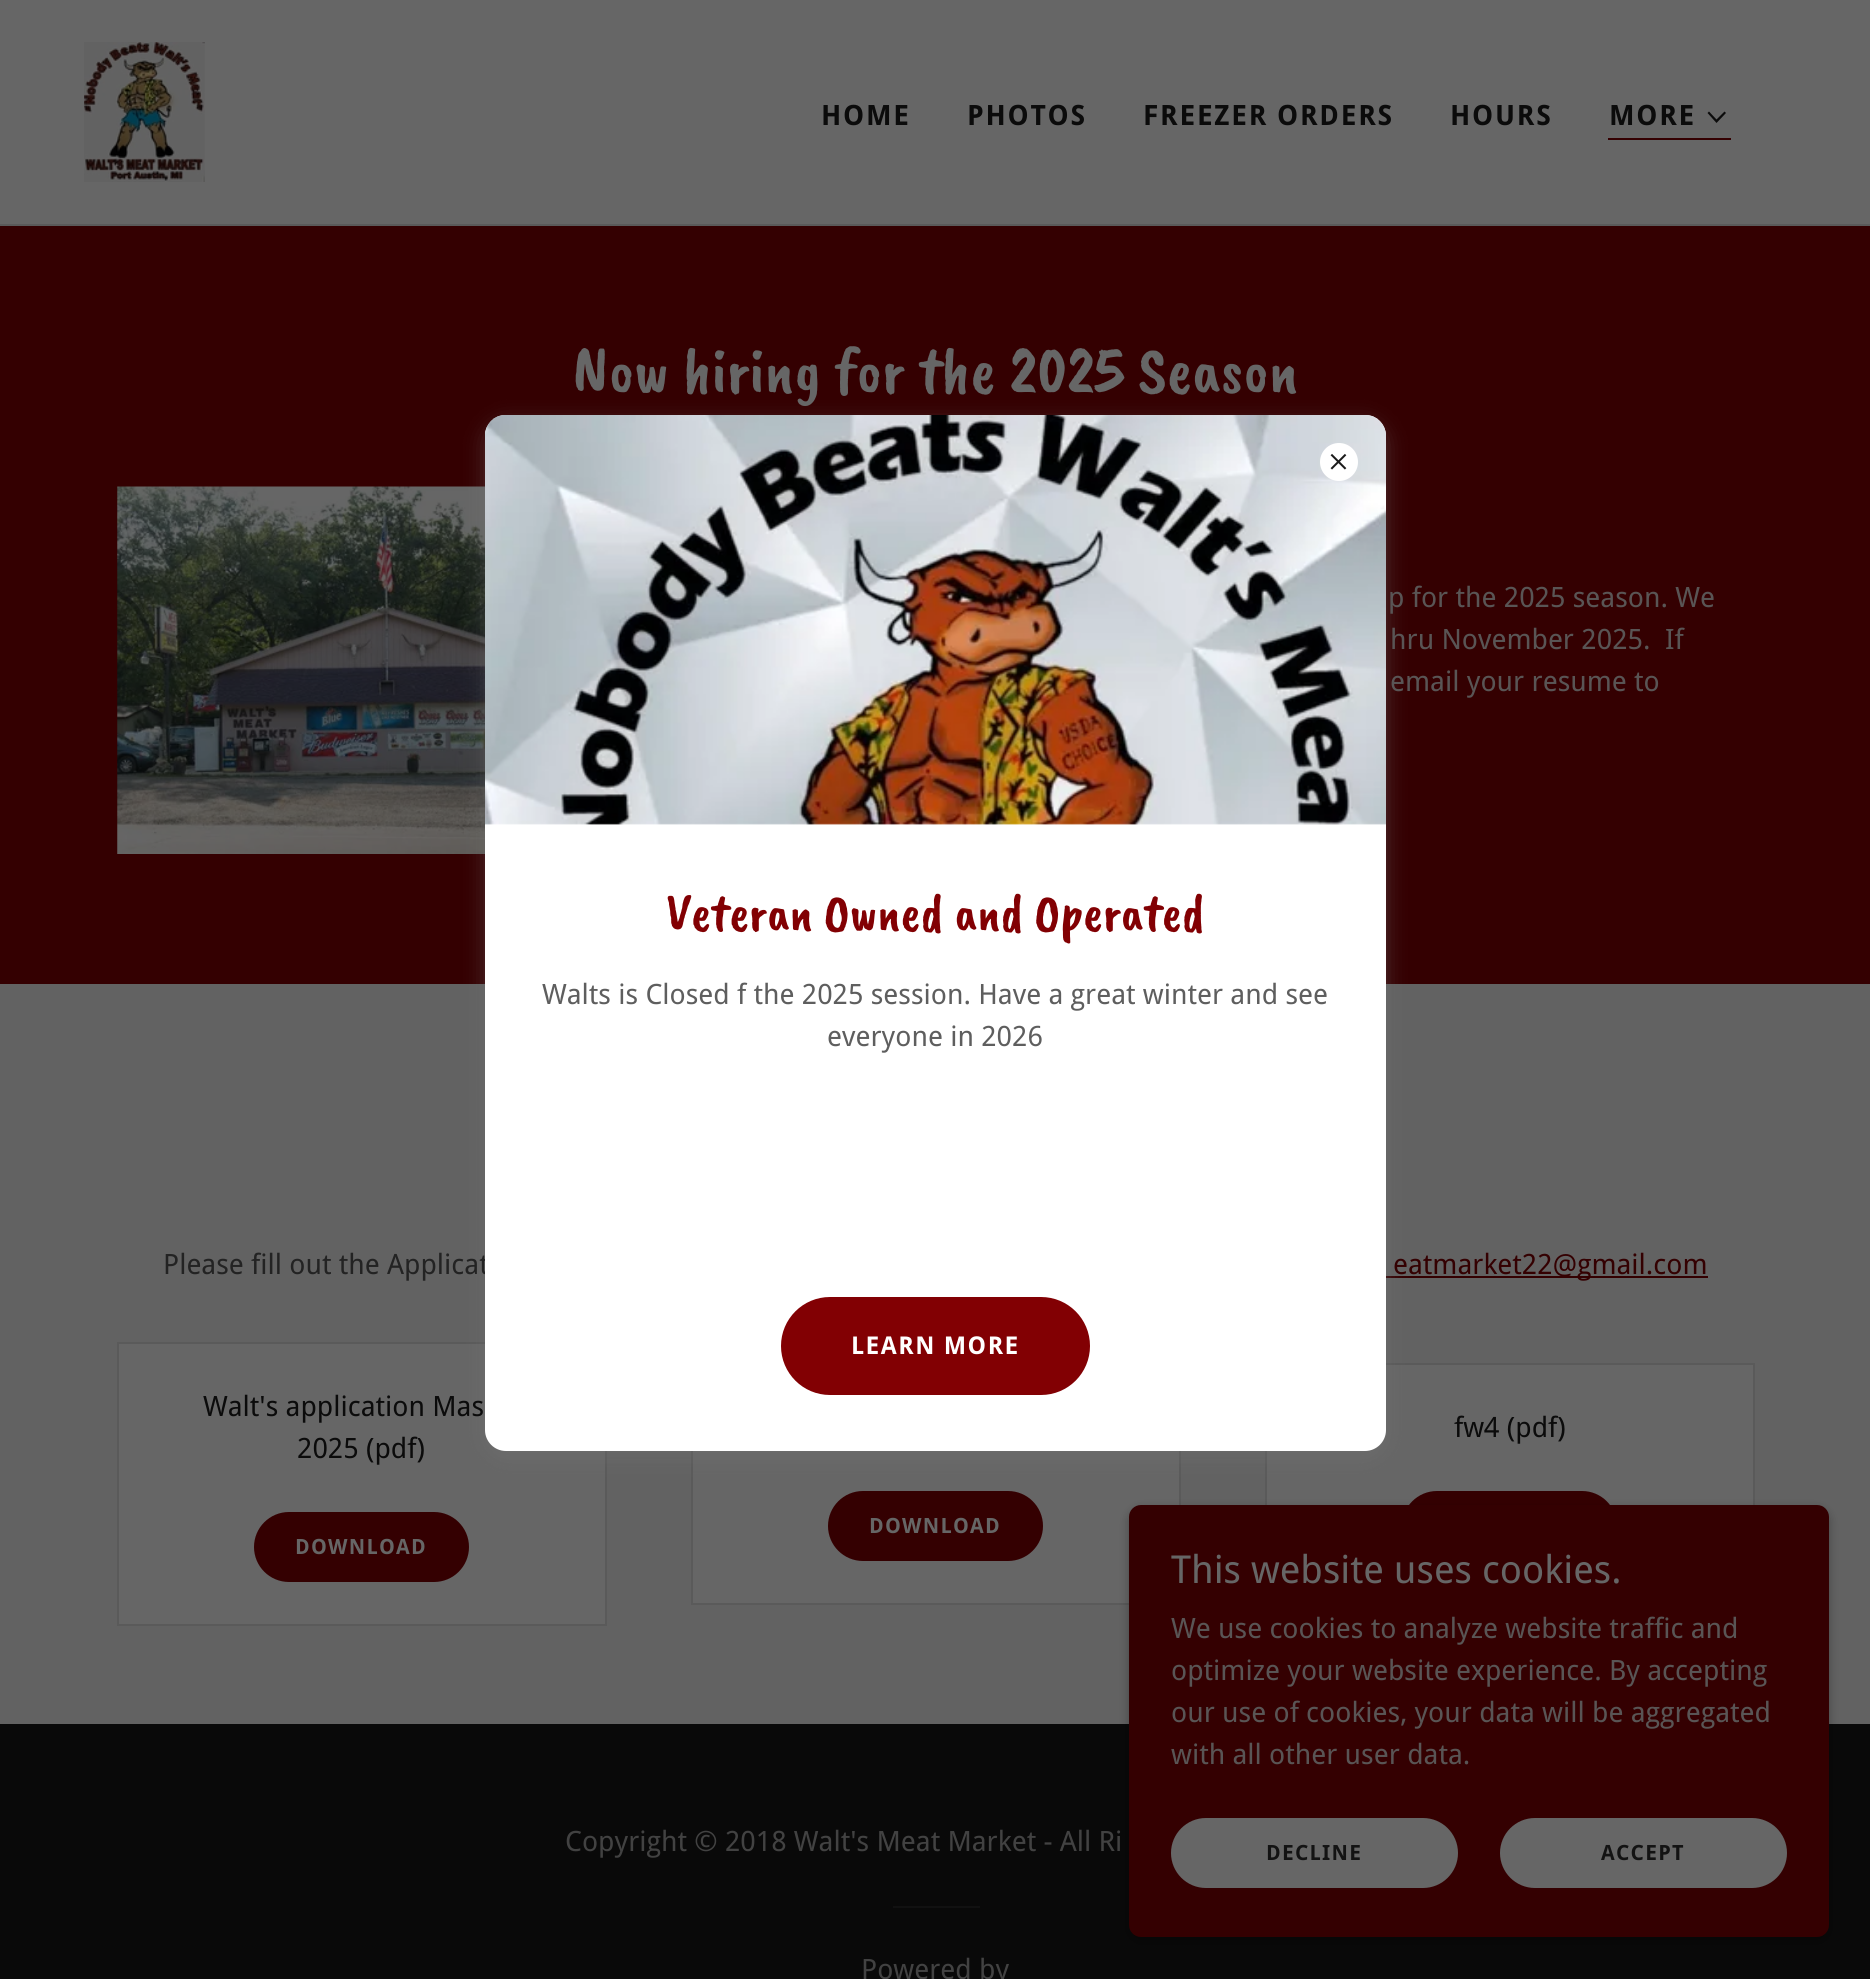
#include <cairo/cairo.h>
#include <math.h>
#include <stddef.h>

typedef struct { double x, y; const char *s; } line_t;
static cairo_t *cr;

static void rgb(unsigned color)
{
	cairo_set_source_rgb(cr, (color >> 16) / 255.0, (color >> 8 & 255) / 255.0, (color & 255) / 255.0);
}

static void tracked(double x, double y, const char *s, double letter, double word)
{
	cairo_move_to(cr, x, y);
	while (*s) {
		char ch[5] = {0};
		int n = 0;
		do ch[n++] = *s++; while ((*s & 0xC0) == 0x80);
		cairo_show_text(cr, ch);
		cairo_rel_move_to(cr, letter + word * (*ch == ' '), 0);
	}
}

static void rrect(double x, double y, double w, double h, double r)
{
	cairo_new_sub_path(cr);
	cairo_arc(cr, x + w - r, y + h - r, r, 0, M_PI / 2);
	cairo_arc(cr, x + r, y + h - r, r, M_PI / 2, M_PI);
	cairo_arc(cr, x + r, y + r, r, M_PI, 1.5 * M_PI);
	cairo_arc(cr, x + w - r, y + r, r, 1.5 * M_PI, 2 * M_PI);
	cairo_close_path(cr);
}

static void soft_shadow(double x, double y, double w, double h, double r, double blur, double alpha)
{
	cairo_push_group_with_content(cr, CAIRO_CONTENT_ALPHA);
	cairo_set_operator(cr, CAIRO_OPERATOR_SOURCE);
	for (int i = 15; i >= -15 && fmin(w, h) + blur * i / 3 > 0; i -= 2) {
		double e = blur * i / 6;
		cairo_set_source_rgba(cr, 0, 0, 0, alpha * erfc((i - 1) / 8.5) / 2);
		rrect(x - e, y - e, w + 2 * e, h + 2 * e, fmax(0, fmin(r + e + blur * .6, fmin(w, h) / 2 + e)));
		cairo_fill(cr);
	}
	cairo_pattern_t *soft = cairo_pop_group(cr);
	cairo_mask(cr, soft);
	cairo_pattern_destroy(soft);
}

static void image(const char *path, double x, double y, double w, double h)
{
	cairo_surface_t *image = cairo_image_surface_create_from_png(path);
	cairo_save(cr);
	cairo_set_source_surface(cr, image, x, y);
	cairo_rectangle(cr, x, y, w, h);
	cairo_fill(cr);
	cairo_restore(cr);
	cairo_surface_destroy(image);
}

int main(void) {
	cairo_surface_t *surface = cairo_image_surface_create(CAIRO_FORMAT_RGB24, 1870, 1979);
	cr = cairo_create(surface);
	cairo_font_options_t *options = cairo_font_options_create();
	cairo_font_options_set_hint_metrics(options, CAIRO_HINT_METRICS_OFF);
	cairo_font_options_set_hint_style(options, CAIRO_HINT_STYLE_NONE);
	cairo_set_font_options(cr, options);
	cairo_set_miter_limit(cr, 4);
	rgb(0x090909);
	cairo_paint(cr);
	rgb(0x666666);
	cairo_rectangle(cr, 0, 0, 1870, 224);
	cairo_fill(cr);
	image("img/1.png", 84, 42, 121, 140);
	rgb(0x340001);
	cairo_rectangle(cr, 1608, 138, 123, 2);
	cairo_fill(cr);
	rgb(0x0b0b0b);
	cairo_set_fill_rule(cr, CAIRO_FILL_RULE_EVEN_ODD);
	cairo_new_path(cr);
	cairo_move_to(cr, 1724.5, 111.5);
	cairo_line_to(cr, 1716.5, 119.5);
	cairo_line_to(cr, 1709, 111.5);
	cairo_line_to(cr, 1707.5, 113);
	cairo_line_to(cr, 1716.5, 123);
	cairo_line_to(cr, 1726, 113);
	cairo_close_path(cr);
	cairo_fill(cr);
	rgb(0x5a5a5a);
	cairo_rectangle(cr, 0, 224, 1870, 2);
	cairo_fill(cr);
	rgb(0x340001);
	cairo_rectangle(cr, 0, 226, 1870, 758);
	cairo_fill(cr);
	image("img/2.png", 117, 486, 368, 368);
	rgb(0x626262);
	cairo_rectangle(cr, 0, 984, 1870, 740);
	cairo_fill(cr);
	rgb(0x340001);
	cairo_rectangle(cr, 1386, 1276, 322, 2);
	cairo_fill(cr);
	rgb(0x666666);
	cairo_rectangle(cr, 118, 1343, 488, 282);
	cairo_fill_preserve(cr);
	rgb(0x5a5a5a);
	cairo_stroke(cr);
	rgb(0x666666);
	cairo_rectangle(cr, 1267, 1365, 486, 140);
	cairo_fill(cr);
	cairo_rectangle(cr, 1266, 1364, 488, 240);
	rgb(0x5a5a5a);
	cairo_stroke(cr);
	rgb(0x666666);
	cairo_rectangle(cr, 693, 1451, 486, 152);
	cairo_fill(cr);
	cairo_rectangle(cr, 692, 1364, 488, 240);
	rgb(0x5a5a5a);
	cairo_stroke(cr);
	rgb(0x757575);
	soft_shadow(485, 422, 901, 1036, 21, 10.5, 0.4);
	rgb(0x340001);
	rrect(254, 1512, 215, 70, 35);
	cairo_fill(cr);
	rrect(1402, 1491, 215, 70, 35);
	cairo_fill(cr);
	rrect(828, 1491, 215, 70, 35);
	cairo_fill(cr);
	rgb(0x000000);
	soft_shadow(1129, 1509, 700, 432, 12, 5, 0.3);
	rgb(0x340001);
	rrect(1129, 1505, 700, 432, 12);
	cairo_fill(cr);
	rgb(0x666666);
	rrect(1171, 1818, 287, 70, 35);
	cairo_fill(cr);
	rrect(1500, 1818, 287, 70, 35);
	cairo_fill(cr);
	rgb(0x111111);
	cairo_rectangle(cr, 893, 1906, 87, 2);
	cairo_fill(cr);
	cairo_select_font_face(cr, "Droid Sans", CAIRO_FONT_SLANT_NORMAL, CAIRO_FONT_WEIGHT_BOLD);
	cairo_set_font_size(cr, 28);
	rgb(0x0b0b0b);
	{
		static const line_t items[] = {
			{821, 125, "HOME"},
			{967, 125, "PHOTOS"},
			{1143, 125, "FREEZER ORDERS"},
			{1450, 125, "HOURS"},
			{1609, 125, "MORE"},
		};
		for (size_t i = 0; i < sizeof items / sizeof *items; i++) {
			tracked(items[i].x, items[i].y, items[i].s, 1.75, 0);
		}
	}
	cairo_select_font_face(cr, "Caveat Brush", CAIRO_FONT_SLANT_NORMAL, CAIRO_FONT_WEIGHT_NORMAL);
	cairo_set_font_size(cr, 66.5);
	rgb(0x666666);
	cairo_move_to(cr, 573, 392);
	cairo_show_text(cr, "Now hiring for the 2025 Season");
	cairo_select_font_face(cr, "Droid Sans", CAIRO_FONT_SLANT_NORMAL, CAIRO_FONT_WEIGHT_NORMAL);
	cairo_set_font_size(cr, 28);
	rgb(0x595555);
	{
		static const line_t items[] = {
			{1388, 607, "p for the 2025 season. We"},
			{1390, 649, "hru November 2025.  If"},
			{1390, 691, "email your resume to"},
		};
		for (size_t i = 0; i < sizeof items / sizeof *items; i++) {
			cairo_move_to(cr, items[i].x, items[i].y);
			cairo_show_text(cr, items[i].s);
		}
	}
	rgb(0x232323);
	cairo_move_to(cr, 163, 1274);
	cairo_show_text(cr, "Please fill out the Applicat");
	rgb(0xffffff);
	rrect(485, 415, 901, 1036, 21);
	cairo_fill(cr);
	image("img/4.png", 485, 415, 901, 410);
	cairo_arc(cr, 1339, 462, 19, 0, 2 * M_PI);
	cairo_fill(cr);
	image("img/3.png", 1330, 453, 17, 17);
	rgb(0x820003);
	rrect(781, 1297, 309, 98, 49);
	cairo_fill(cr);
	cairo_select_font_face(cr, "Droid Sans", CAIRO_FONT_SLANT_NORMAL, CAIRO_FONT_WEIGHT_BOLD);
	cairo_set_font_size(cr, 24.5);
	rgb(0xffffff);
	tracked(851, 1354, "LEARN MORE", 1.5, 0);
	cairo_select_font_face(cr, "Droid Sans", CAIRO_FONT_SLANT_NORMAL, CAIRO_FONT_WEIGHT_NORMAL);
	cairo_set_font_size(cr, 28);
	rgb(0x5e5e5e);
	cairo_move_to(cr, 827, 1046);
	cairo_show_text(cr, "everyone in 2026");
	cairo_move_to(cr, 542, 1004);
	cairo_show_text(cr, "Walts is Closed f the 2025 session. Have a great winter and see");
	cairo_select_font_face(cr, "Caveat Brush", CAIRO_FONT_SLANT_NORMAL, CAIRO_FONT_WEIGHT_NORMAL);
	cairo_set_font_size(cr, 52.5);
	rgb(0x820003);
	cairo_move_to(cr, 666, 930);
	cairo_show_text(cr, "Veteran Owned and Operated");
	cairo_select_font_face(cr, "Droid Sans", CAIRO_FONT_SLANT_NORMAL, CAIRO_FONT_WEIGHT_NORMAL);
	cairo_set_font_size(cr, 28);
	rgb(0x340001);
	cairo_move_to(cr, 1393, 1274);
	cairo_show_text(cr, "eatmarket22@gmail.com");
	rgb(0x0b0b0b);
	cairo_move_to(cr, 203, 1416);
	cairo_show_text(cr, "Walt's application Mas");
	cairo_move_to(cr, 297, 1458);
	cairo_show_text(cr, "2025 (pdf)");
	cairo_select_font_face(cr, "Droid Sans", CAIRO_FONT_SLANT_NORMAL, CAIRO_FONT_WEIGHT_BOLD);
	cairo_set_font_size(cr, 21);
	rgb(0x666666);
	tracked(295, 1554, "DOWNLOAD", 1.25, 0);
	cairo_select_font_face(cr, "Droid Sans", CAIRO_FONT_SLANT_NORMAL, CAIRO_FONT_WEIGHT_NORMAL);
	cairo_set_font_size(cr, 28);
	rgb(0x0b0b0b);
	cairo_move_to(cr, 1454, 1437);
	cairo_show_text(cr, "fw4 (pdf)");
	cairo_select_font_face(cr, "Droid Sans", CAIRO_FONT_SLANT_NORMAL, CAIRO_FONT_WEIGHT_BOLD);
	cairo_set_font_size(cr, 21);
	rgb(0x666666);
	tracked(869, 1533, "DOWNLOAD", 1.25, 0);
	cairo_select_font_face(cr, "Droid Sans", CAIRO_FONT_SLANT_NORMAL, CAIRO_FONT_WEIGHT_NORMAL);
	cairo_set_font_size(cr, 38.5);
	cairo_move_to(cr, 1171, 1583);
	cairo_show_text(cr, "This website uses cookies.");
	cairo_set_font_size(cr, 28);
	rgb(0x595555);
	{
		static const line_t items[] = {
			{1171, 1638, "We use cookies to analyze website traffic and"},
			{1171, 1680, "optimize your website experience. By accepting"},
			{1171, 1722, "our use of cookies, your data will be aggregated"},
			{1171, 1764, "with all other user data."},
		};
		for (size_t i = 0; i < sizeof items / sizeof *items; i++) {
			cairo_move_to(cr, items[i].x, items[i].y);
			cairo_show_text(cr, items[i].s);
		}
	}
	cairo_select_font_face(cr, "Droid Sans", CAIRO_FONT_SLANT_NORMAL, CAIRO_FONT_WEIGHT_BOLD);
	cairo_set_font_size(cr, 21);
	rgb(0x131313);
	tracked(1266, 1860, "DECLINE", 1.25, 0);
	tracked(1601, 1860, "ACCEPT", 1.25, 0);
	cairo_select_font_face(cr, "Droid Sans", CAIRO_FONT_SLANT_NORMAL, CAIRO_FONT_WEIGHT_NORMAL);
	cairo_set_font_size(cr, 28);
	rgb(0x424242);
	cairo_move_to(cr, 565, 1851);
	cairo_show_text(cr, "Copyright © 2018 Walt's Meat Market - All Ri");
	cairo_move_to(cr, 861, 1979);
	cairo_show_text(cr, "Powered by");
	cairo_surface_write_to_png(surface, "page.png");
	cairo_font_options_destroy(options);
	cairo_destroy(cr);
	cairo_surface_destroy(surface);
	return 0;
}
